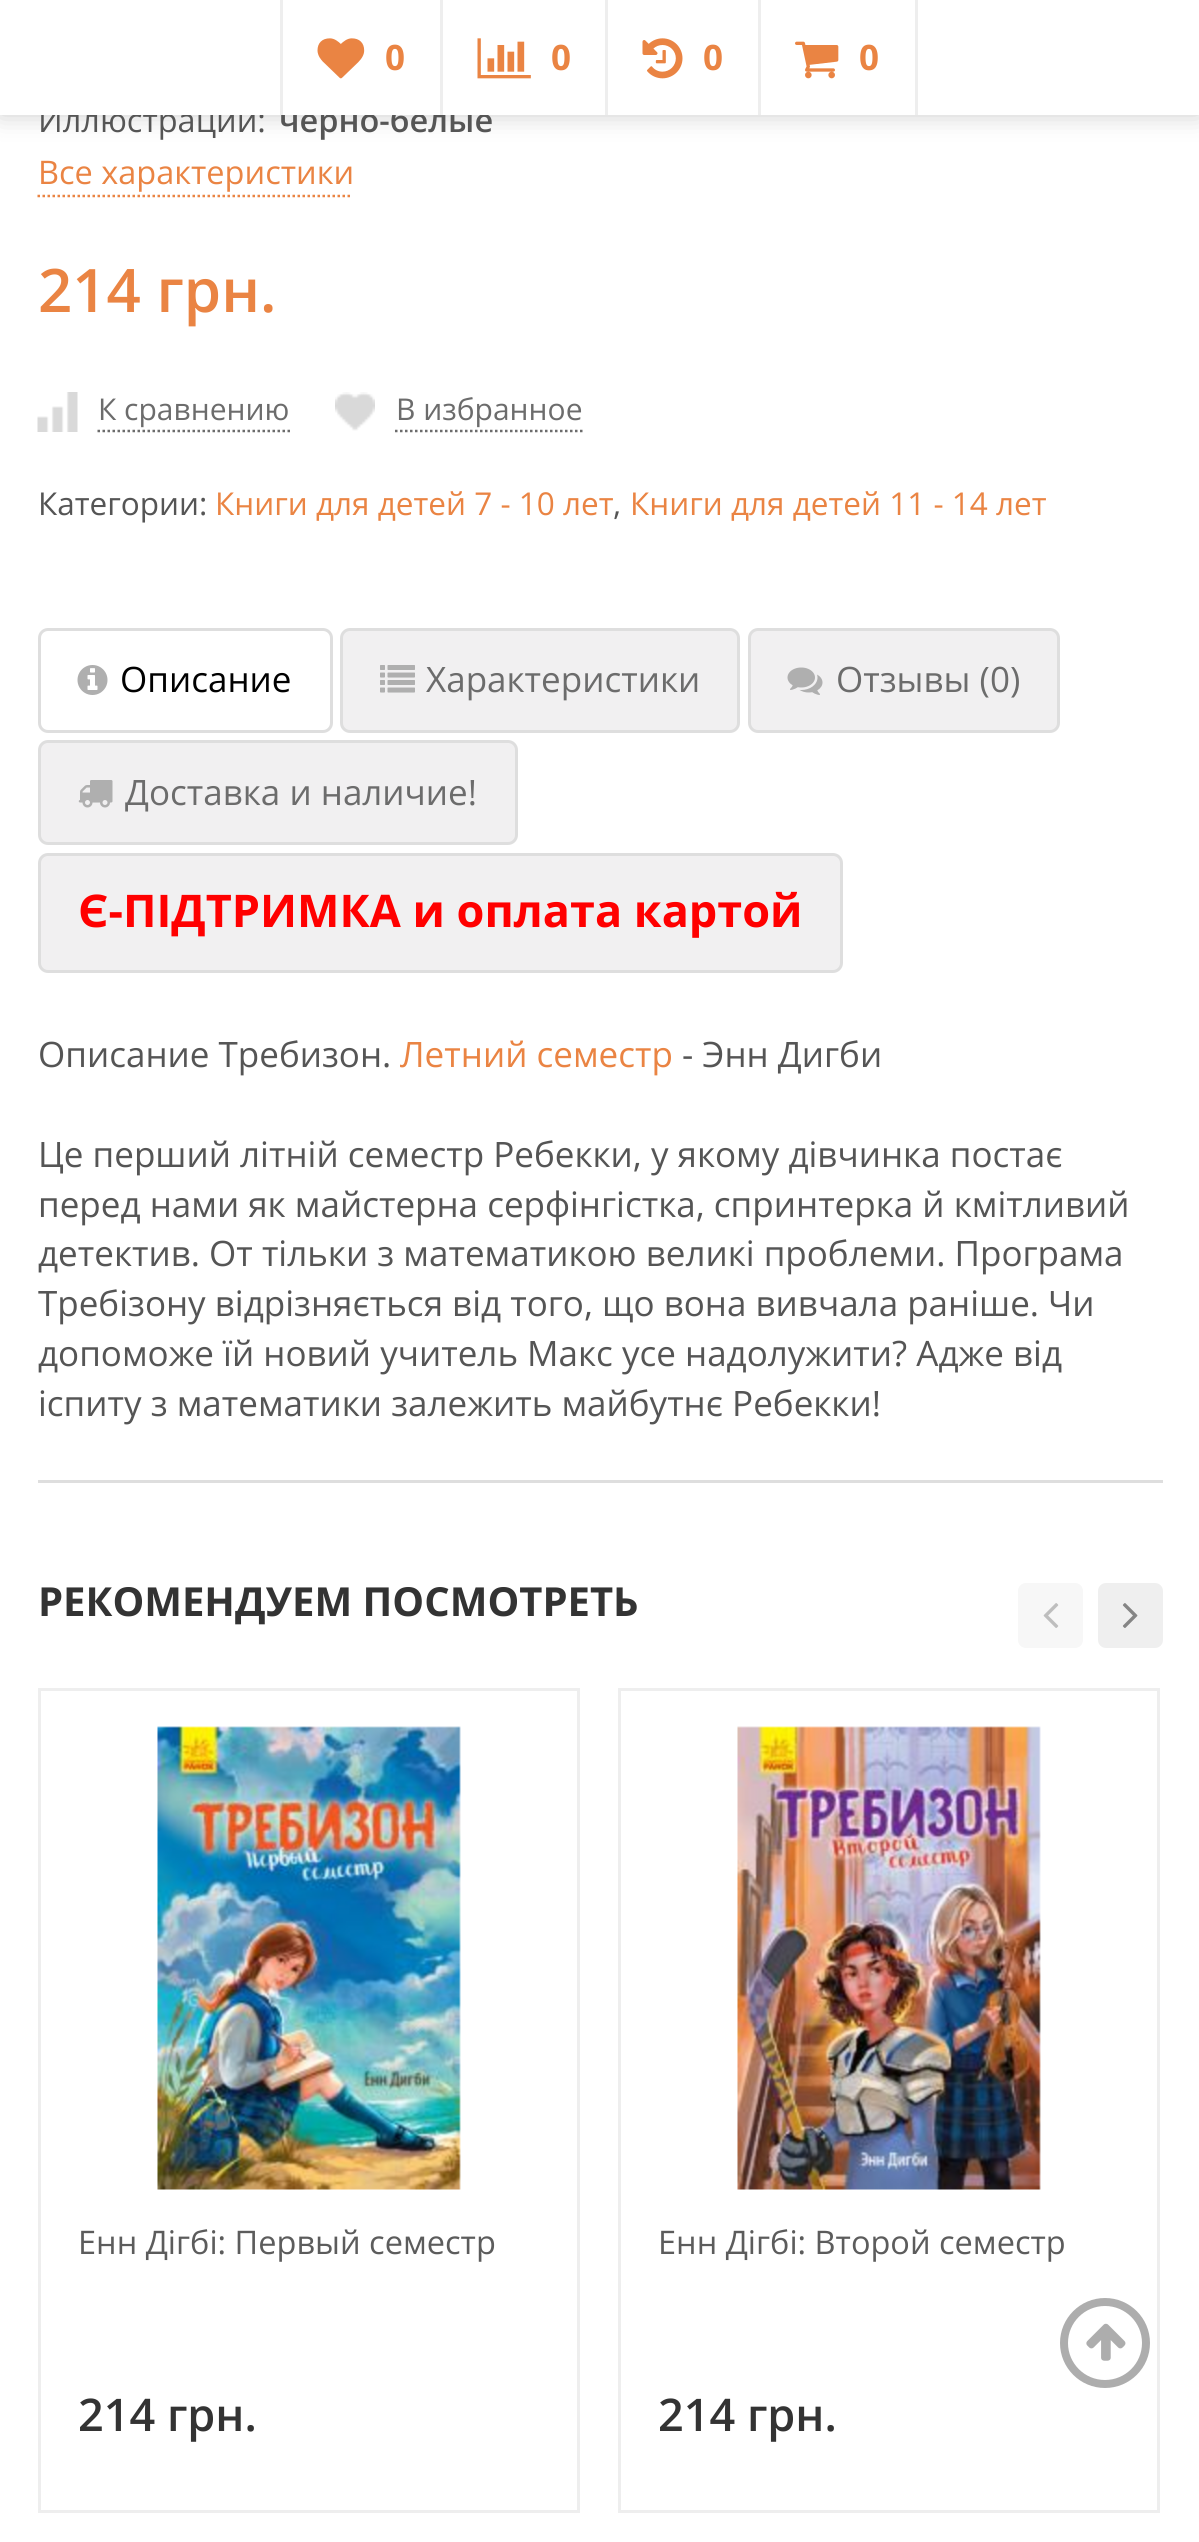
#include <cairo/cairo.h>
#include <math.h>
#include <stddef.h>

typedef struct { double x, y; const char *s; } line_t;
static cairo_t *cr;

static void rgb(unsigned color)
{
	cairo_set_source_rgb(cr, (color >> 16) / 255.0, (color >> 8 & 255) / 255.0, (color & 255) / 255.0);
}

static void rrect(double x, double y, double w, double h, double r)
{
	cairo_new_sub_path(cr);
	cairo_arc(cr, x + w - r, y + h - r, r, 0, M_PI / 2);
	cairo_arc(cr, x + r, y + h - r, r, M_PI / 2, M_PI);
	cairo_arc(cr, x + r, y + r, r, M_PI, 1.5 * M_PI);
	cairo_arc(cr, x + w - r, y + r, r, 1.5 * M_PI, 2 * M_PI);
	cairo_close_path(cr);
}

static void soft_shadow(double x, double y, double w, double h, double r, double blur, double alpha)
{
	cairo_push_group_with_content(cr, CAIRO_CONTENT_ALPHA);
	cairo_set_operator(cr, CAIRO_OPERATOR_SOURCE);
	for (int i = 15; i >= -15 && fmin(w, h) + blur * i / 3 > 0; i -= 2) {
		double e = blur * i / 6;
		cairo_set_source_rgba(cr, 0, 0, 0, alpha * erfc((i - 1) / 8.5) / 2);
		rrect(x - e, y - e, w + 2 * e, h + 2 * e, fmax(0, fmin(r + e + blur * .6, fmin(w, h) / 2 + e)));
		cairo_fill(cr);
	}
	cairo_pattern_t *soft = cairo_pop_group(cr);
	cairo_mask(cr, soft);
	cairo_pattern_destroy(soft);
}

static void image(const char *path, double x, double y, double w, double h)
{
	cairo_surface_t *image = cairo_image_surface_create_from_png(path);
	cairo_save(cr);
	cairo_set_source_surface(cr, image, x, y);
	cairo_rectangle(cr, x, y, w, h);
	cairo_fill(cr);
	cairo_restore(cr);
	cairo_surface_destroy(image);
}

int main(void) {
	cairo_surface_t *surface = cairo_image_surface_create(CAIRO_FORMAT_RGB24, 1199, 2542);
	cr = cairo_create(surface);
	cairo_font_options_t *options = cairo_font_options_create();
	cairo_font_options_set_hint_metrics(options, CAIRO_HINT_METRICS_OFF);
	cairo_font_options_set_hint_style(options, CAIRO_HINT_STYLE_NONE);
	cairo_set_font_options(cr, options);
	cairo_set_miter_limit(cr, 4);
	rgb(0xffffff);
	cairo_paint(cr);
	rgb(0x000000);
	soft_shadow(0, 0, 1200, 115, 0, 12.5, 0.2);
	cairo_new_path(cr);
	cairo_move_to(cr, 37.5, 196);
	cairo_line_to(cr, 352.5, 196);
	rgb(0xea8443);
	cairo_set_line_width(cr, 2.5);
	cairo_set_dash(cr, (double[]){2.5, 2.5}, 2, 0);
	cairo_stroke(cr);
	image("img/5.png", 37, 392, 41, 40);
	cairo_new_path(cr);
	cairo_move_to(cr, 97.5, 431);
	cairo_line_to(cr, 290, 431);
	rgb(0x6c6c6c);
	cairo_stroke(cr);
	image("img/6.png", 335, 392, 40, 39);
	cairo_new_path(cr);
	cairo_move_to(cr, 395, 431);
	cairo_line_to(cr, 582.5, 431);
	cairo_stroke(cr);
	rrect(39.5, 629.5, 292, 102, 8.5);
	rgb(0xdedede);
	cairo_set_line_width(cr, 3);
	cairo_set_dash(cr, NULL, 0, 0);
	cairo_stroke(cr);
	image("img/7.png", 77, 665, 31, 30);
	rgb(0xf1f0f1);
	rrect(341.5, 629.5, 397, 102, 8.5);
	cairo_fill_preserve(cr);
	rgb(0xdedede);
	cairo_stroke(cr);
	image("img/8.png", 380, 665, 35, 28);
	rgb(0xf1f0f1);
	rrect(749.5, 629.5, 309, 102, 8.5);
	cairo_fill_preserve(cr);
	rgb(0xdedede);
	cairo_stroke(cr);
	image("img/9.png", 787, 667, 36, 28);
	rgb(0xf1f0f1);
	rrect(39.5, 741.5, 477, 102, 8.5);
	cairo_fill_preserve(cr);
	rgb(0xdedede);
	cairo_stroke(cr);
	image("img/10.png", 78, 780, 35, 28);
	rgb(0xf1f0f1);
	rrect(39.5, 854.5, 802, 117, 8.5);
	cairo_fill_preserve(cr);
	rgb(0xdedede);
	cairo_stroke(cr);
	cairo_rectangle(cr, 38, 1480, 1125, 3);
	cairo_fill(cr);
	rgb(0xf7f7f7);
	rrect(1018, 1583, 65, 65, 8);
	cairo_fill(cr);
	image("img/11.png", 1043, 1603, 16, 25);
	rgb(0xefefef);
	rrect(1098, 1583, 65, 65, 8);
	cairo_fill(cr);
	image("img/12.png", 1122, 1603, 16, 25);
	cairo_rectangle(cr, 39.5, 1689.5, 539, 822);
	rgb(0xeeeeee);
	cairo_stroke(cr);
	image("img/13.png", 157, 1726, 304, 464);
	cairo_rectangle(cr, 619.5, 1689.5, 539, 822);
	cairo_stroke(cr);
	image("img/14.png", 737, 1726, 304, 464);
	cairo_arc(cr, 1105, 2343, 41, 0, 2 * M_PI);
	rgb(0xadadad);
	cairo_set_line_width(cr, 8);
	cairo_stroke(cr);
	image("img/15.png", 1086, 2323, 40, 38);
	cairo_select_font_face(cr, "Open Sans", CAIRO_FONT_SLANT_NORMAL, CAIRO_FONT_WEIGHT_NORMAL);
	cairo_set_font_size(cr, 32.5);
	rgb(0x555555);
	cairo_move_to(cr, 38, 132);
	cairo_show_text(cr, "Иллюстрации:");
	cairo_select_font_face(cr, "Open Sans SemiBold", CAIRO_FONT_SLANT_NORMAL, CAIRO_FONT_WEIGHT_NORMAL);
	cairo_move_to(cr, 279, 132);
	cairo_show_text(cr, "черно-белые");
	rgb(0xffffff);
	cairo_rectangle(cr, 0, 0, 1199, 115);
	cairo_fill(cr);
	cairo_select_font_face(cr, "Open Sans", CAIRO_FONT_SLANT_NORMAL, CAIRO_FONT_WEIGHT_BOLD);
	cairo_set_font_size(cr, 35);
	rgb(0xea8443);
	cairo_move_to(cr, 859, 70);
	cairo_show_text(cr, "0");
	image("img/4.png", 795, 41, 44, 38);
	rgb(0xeeeeee);
	cairo_rectangle(cr, 758, 0, 3, 115);
	cairo_fill(cr);
	cairo_rectangle(cr, 915, 0, 3, 115);
	cairo_fill(cr);
	rgb(0xea8443);
	cairo_move_to(cr, 703, 70);
	cairo_show_text(cr, "0");
	image("img/3.png", 642, 38, 41, 41);
	rgb(0xeeeeee);
	cairo_rectangle(cr, 605, 0, 3, 115);
	cairo_fill(cr);
	rgb(0xea8443);
	cairo_move_to(cr, 551, 70);
	cairo_show_text(cr, "0");
	image("img/2.png", 477, 38, 54, 41);
	rgb(0xeeeeee);
	cairo_rectangle(cr, 440, 0, 3, 115);
	cairo_fill(cr);
	rgb(0xea8443);
	cairo_move_to(cr, 385, 70);
	cairo_show_text(cr, "0");
	image("img/1.png", 317, 38, 48, 41);
	rgb(0xeeeeee);
	cairo_rectangle(cr, 280, 0, 3, 115);
	cairo_fill(cr);
	cairo_select_font_face(cr, "Open Sans", CAIRO_FONT_SLANT_NORMAL, CAIRO_FONT_WEIGHT_NORMAL);
	cairo_set_font_size(cr, 32.5);
	rgb(0xea8443);
	cairo_move_to(cr, 38, 184);
	cairo_show_text(cr, "Все характеристики");
	cairo_select_font_face(cr, "Open Sans SemiBold", CAIRO_FONT_SLANT_NORMAL, CAIRO_FONT_WEIGHT_NORMAL);
	cairo_set_font_size(cr, 60);
	cairo_move_to(cr, 38, 312);
	cairo_show_text(cr, "214 грн.");
	cairo_select_font_face(cr, "Open Sans", CAIRO_FONT_SLANT_NORMAL, CAIRO_FONT_WEIGHT_NORMAL);
	cairo_set_font_size(cr, 30);
	rgb(0x6c6c6c);
	cairo_move_to(cr, 98, 420);
	cairo_show_text(cr, "К сравнению");
	cairo_move_to(cr, 396, 420);
	cairo_show_text(cr, "В избранное");
	cairo_set_font_size(cr, 31.5);
	rgb(0x555555);
	cairo_move_to(cr, 38, 515);
	cairo_show_text(cr, "Категории:");
	rgb(0xea8443);
	cairo_move_to(cr, 215, 515);
	cairo_show_text(cr, "Книги для детей 7 - 10 лет");
	rgb(0x555555);
	cairo_move_to(cr, 613, 515);
	cairo_show_text(cr, ",");
	rgb(0xea8443);
	cairo_move_to(cr, 630, 515);
	cairo_show_text(cr, "Книги для детей 11 - 14 лет");
	cairo_set_font_size(cr, 35);
	rgb(0x000000);
	cairo_move_to(cr, 120, 692);
	cairo_show_text(cr, "Описание");
	rgb(0x6c6c6c);
	{
		static const line_t items[] = {
			{426, 692, "Характеристики"},
			{836, 692, "Отзывы (0)"},
			{125, 805, "Доставка и наличие!"},
		};
		for (size_t i = 0; i < sizeof items / sizeof *items; i++) {
			cairo_move_to(cr, items[i].x, items[i].y);
			cairo_show_text(cr, items[i].s);
		}
	}
	cairo_select_font_face(cr, "Open Sans", CAIRO_FONT_SLANT_NORMAL, CAIRO_FONT_WEIGHT_BOLD);
	cairo_set_font_size(cr, 45);
	rgb(0xff0000);
	cairo_move_to(cr, 78, 927);
	cairo_show_text(cr, "Є-ПІДТРИМКА и оплата картой");
	cairo_select_font_face(cr, "Open Sans", CAIRO_FONT_SLANT_NORMAL, CAIRO_FONT_WEIGHT_NORMAL);
	cairo_set_font_size(cr, 35);
	rgb(0x555555);
	cairo_move_to(cr, 38, 1067);
	cairo_show_text(cr, "Описание Требизон.");
	rgb(0xea8443);
	cairo_move_to(cr, 400, 1067);
	cairo_show_text(cr, "Летний семестр");
	rgb(0x555555);
	{
		static const line_t items[] = {
			{682, 1067, "- Энн Дигби"},
			{38, 1167, "Це перший літній семестр Ребекки, у якому дівчинка постає"},
			{38, 1217, "перед нами як майстерна серфінгістка, спринтерка й кмітливий"},
			{38, 1266, "детектив. От тільки з математикою великі проблеми. Програма"},
			{38, 1316, "Требізону відрізняється від того, що вона вивчала раніше. Чи"},
			{38, 1366, "допоможе їй новий учитель Макс усе надолужити? Адже від"},
			{38, 1416, "іспиту з математики залежить майбутнє Ребекки!"},
		};
		for (size_t i = 0; i < sizeof items / sizeof *items; i++) {
			cairo_move_to(cr, items[i].x, items[i].y);
			cairo_show_text(cr, items[i].s);
		}
	}
	cairo_select_font_face(cr, "Open Sans", CAIRO_FONT_SLANT_NORMAL, CAIRO_FONT_WEIGHT_BOLD);
	cairo_set_font_size(cr, 40);
	rgb(0x333333);
	cairo_move_to(cr, 38, 1616);
	cairo_show_text(cr, "РЕКОМЕНДУЕМ ПОСМОТРЕТЬ");
	cairo_select_font_face(cr, "Open Sans", CAIRO_FONT_SLANT_NORMAL, CAIRO_FONT_WEIGHT_NORMAL);
	cairo_set_font_size(cr, 32.5);
	rgb(0x5c5c5c);
	cairo_move_to(cr, 78, 2254);
	cairo_show_text(cr, "Енн Дігбі: Первый семестр");
	cairo_select_font_face(cr, "Open Sans SemiBold", CAIRO_FONT_SLANT_NORMAL, CAIRO_FONT_WEIGHT_NORMAL);
	cairo_set_font_size(cr, 45);
	rgb(0x333333);
	cairo_move_to(cr, 78, 2431);
	cairo_show_text(cr, "214 грн.");
	cairo_select_font_face(cr, "Open Sans", CAIRO_FONT_SLANT_NORMAL, CAIRO_FONT_WEIGHT_NORMAL);
	cairo_set_font_size(cr, 32.5);
	rgb(0x5c5c5c);
	cairo_move_to(cr, 658, 2254);
	cairo_show_text(cr, "Енн Дігбі: Второй семестр");
	cairo_select_font_face(cr, "Open Sans SemiBold", CAIRO_FONT_SLANT_NORMAL, CAIRO_FONT_WEIGHT_NORMAL);
	cairo_set_font_size(cr, 45);
	rgb(0x333333);
	cairo_move_to(cr, 658, 2431);
	cairo_show_text(cr, "214 грн.");
	cairo_surface_write_to_png(surface, "page.png");
	cairo_font_options_destroy(options);
	cairo_destroy(cr);
	cairo_surface_destroy(surface);
	return 0;
}
